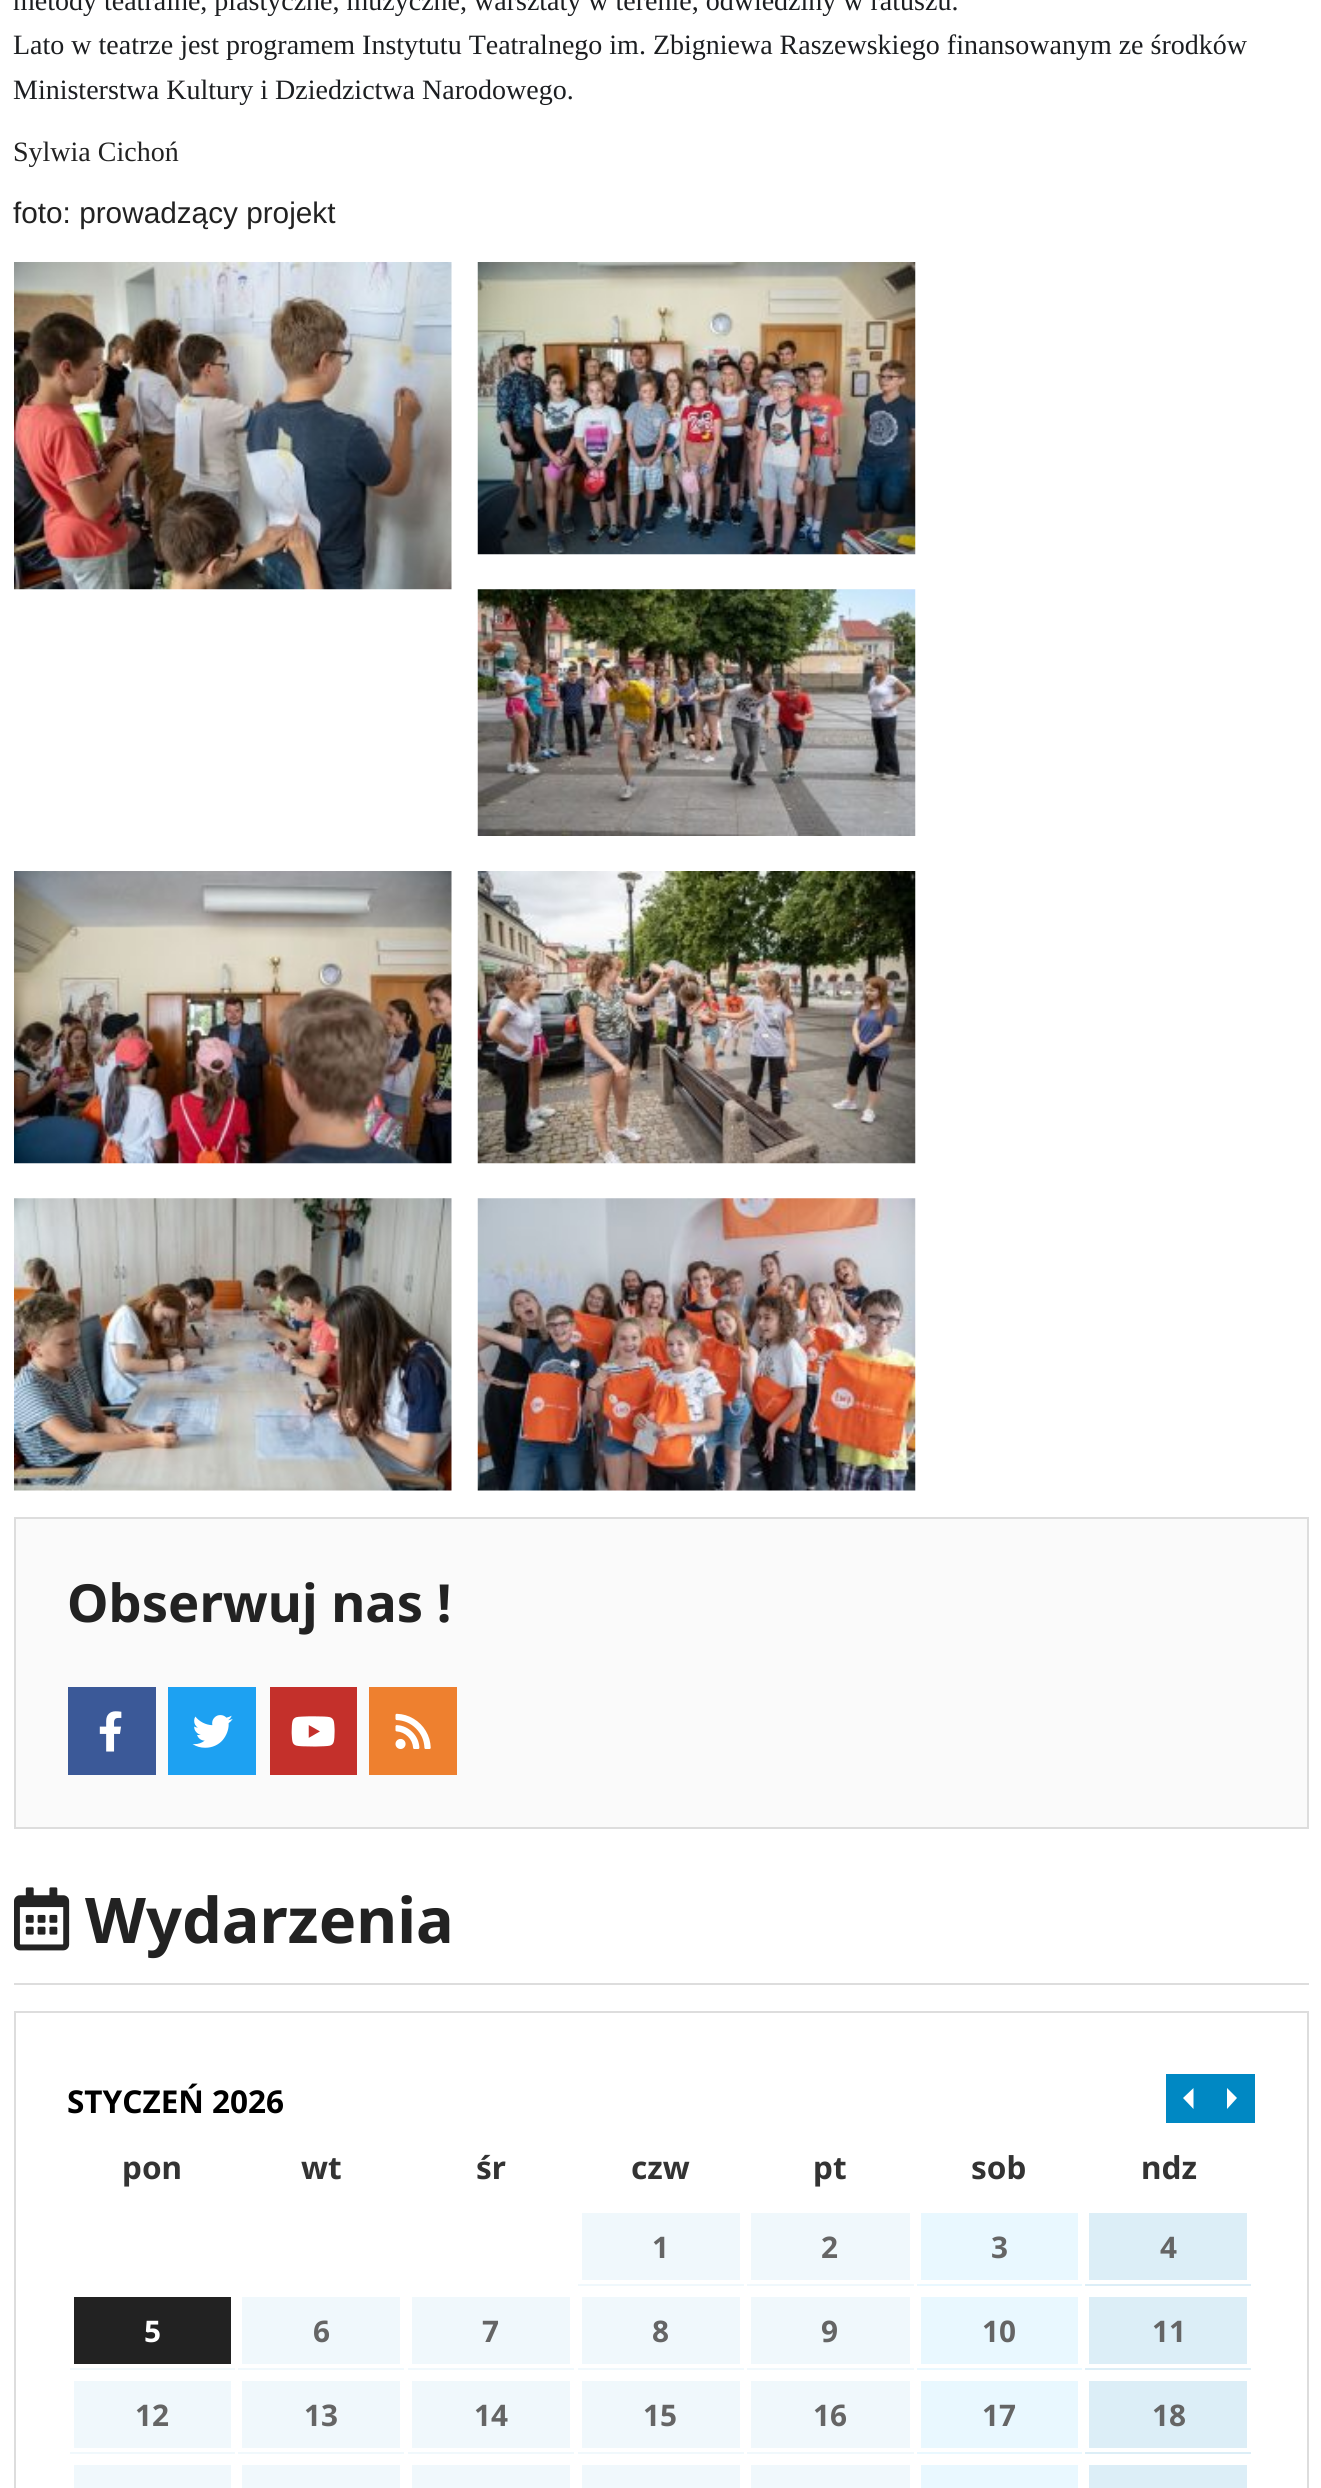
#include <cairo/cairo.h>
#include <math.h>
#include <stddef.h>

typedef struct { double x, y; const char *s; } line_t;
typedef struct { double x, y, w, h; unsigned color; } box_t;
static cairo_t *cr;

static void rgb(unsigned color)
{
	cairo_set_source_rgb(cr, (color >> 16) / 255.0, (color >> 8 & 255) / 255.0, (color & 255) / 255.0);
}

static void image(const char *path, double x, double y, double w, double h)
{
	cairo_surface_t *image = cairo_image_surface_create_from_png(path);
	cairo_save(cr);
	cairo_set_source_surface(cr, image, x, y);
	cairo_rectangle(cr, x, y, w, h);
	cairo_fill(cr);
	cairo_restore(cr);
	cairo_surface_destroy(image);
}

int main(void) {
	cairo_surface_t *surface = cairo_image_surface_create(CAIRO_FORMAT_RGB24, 1321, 2488);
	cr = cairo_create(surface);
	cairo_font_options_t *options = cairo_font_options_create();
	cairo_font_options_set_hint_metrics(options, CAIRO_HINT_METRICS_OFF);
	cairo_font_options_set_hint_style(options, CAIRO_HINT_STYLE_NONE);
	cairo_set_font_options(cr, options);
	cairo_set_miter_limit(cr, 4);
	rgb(0xffffff);
	cairo_paint(cr);
	image("img/1.png", 14, 262, 438, 328);
	image("img/2.png", 477, 262, 439, 293);
	image("img/3.png", 477, 589, 439, 247);
	image("img/4.png", 14, 871, 438, 293);
	image("img/5.png", 477, 871, 439, 293);
	image("img/6.png", 14, 1198, 438, 293);
	image("img/7.png", 477, 1198, 439, 293);
	rgb(0xfafafa);
	cairo_rectangle(cr, 15, 1518, 1293, 310);
	cairo_fill_preserve(cr);
	rgb(0xdddddd);
	cairo_stroke(cr);
	rgb(0x3b5998);
	cairo_rectangle(cr, 68, 1687, 88, 88);
	cairo_fill(cr);
	image("img/8.png", 99, 1711, 23, 41);
	rgb(0x1da1f2);
	cairo_rectangle(cr, 168, 1687, 88, 88);
	cairo_fill(cr);
	image("img/9.png", 192, 1715, 41, 33);
	rgb(0xc4302b);
	cairo_rectangle(cr, 270, 1687, 87, 88);
	cairo_fill(cr);
	image("img/10.png", 291, 1716, 44, 31);
	rgb(0xee802f);
	cairo_rectangle(cr, 369, 1687, 88, 88);
	cairo_fill(cr);
	image("img/11.png", 395, 1713, 36, 36);
	rgb(0xdddddd);
	cairo_rectangle(cr, 14, 1983, 1295, 2);
	cairo_fill(cr);
	image("img/12.png", 14, 1887, 56, 64);
	cairo_rectangle(cr, 15, 2012, 1293, 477);
	cairo_stroke(cr);
	rgb(0xf0f8fc);
	cairo_rectangle(cr, 578, 2213, 166, 73);
	cairo_fill(cr);
	cairo_rectangle(cr, 580, 2211, 162, 71);
	rgb(0xffffff);
	cairo_set_line_width(cr, 4);
	cairo_stroke(cr);
	rgb(0xf0f8fc);
	cairo_rectangle(cr, 747, 2213, 167, 73);
	cairo_fill(cr);
	cairo_rectangle(cr, 749, 2211, 163, 71);
	rgb(0xffffff);
	cairo_stroke(cr);
	rgb(0xe9f8ff);
	cairo_rectangle(cr, 917, 2213, 165, 73);
	cairo_fill(cr);
	cairo_rectangle(cr, 919, 2211, 161, 71);
	rgb(0xffffff);
	cairo_stroke(cr);
	rgb(0xdceef7);
	cairo_rectangle(cr, 1085, 2213, 166, 73);
	cairo_fill(cr);
	cairo_rectangle(cr, 1087, 2211, 162, 71);
	rgb(0xffffff);
	cairo_stroke(cr);
	{
		static const box_t items[] = {
			{70, 2368, 165, 2, 0xf0f8fc},
			{74, 2297, 157, 67, 0x222222},
			{238, 2297, 166, 73, 0xf0f8fc},
		};
		for (size_t i = 0; i < sizeof items / sizeof *items; i++) {
			rgb(items[i].color);
			cairo_rectangle(cr, items[i].x, items[i].y, items[i].w, items[i].h);
			cairo_fill(cr);
		}
	}
	cairo_rectangle(cr, 240, 2295, 162, 71);
	rgb(0xffffff);
	cairo_stroke(cr);
	rgb(0xf0f8fc);
	cairo_rectangle(cr, 408, 2297, 166, 73);
	cairo_fill(cr);
	cairo_rectangle(cr, 410, 2295, 162, 71);
	rgb(0xffffff);
	cairo_stroke(cr);
	rgb(0xf0f8fc);
	cairo_rectangle(cr, 578, 2297, 166, 73);
	cairo_fill(cr);
	cairo_rectangle(cr, 580, 2295, 162, 71);
	rgb(0xffffff);
	cairo_stroke(cr);
	rgb(0xf0f8fc);
	cairo_rectangle(cr, 747, 2297, 167, 73);
	cairo_fill(cr);
	cairo_rectangle(cr, 749, 2295, 163, 71);
	rgb(0xffffff);
	cairo_stroke(cr);
	rgb(0xe9f8ff);
	cairo_rectangle(cr, 917, 2297, 165, 73);
	cairo_fill(cr);
	cairo_rectangle(cr, 919, 2295, 161, 71);
	rgb(0xffffff);
	cairo_stroke(cr);
	rgb(0xdceef7);
	cairo_rectangle(cr, 1085, 2297, 166, 73);
	cairo_fill(cr);
	cairo_rectangle(cr, 1087, 2295, 162, 71);
	rgb(0xffffff);
	cairo_stroke(cr);
	rgb(0xf0f8fc);
	cairo_rectangle(cr, 70, 2381, 165, 73);
	cairo_fill(cr);
	cairo_rectangle(cr, 72, 2379, 161, 71);
	rgb(0xffffff);
	cairo_stroke(cr);
	rgb(0xf0f8fc);
	cairo_rectangle(cr, 238, 2381, 166, 73);
	cairo_fill(cr);
	cairo_rectangle(cr, 240, 2379, 162, 71);
	rgb(0xffffff);
	cairo_stroke(cr);
	rgb(0xf0f8fc);
	cairo_rectangle(cr, 408, 2381, 166, 73);
	cairo_fill(cr);
	cairo_rectangle(cr, 410, 2379, 162, 71);
	rgb(0xffffff);
	cairo_stroke(cr);
	rgb(0xf0f8fc);
	cairo_rectangle(cr, 578, 2381, 166, 73);
	cairo_fill(cr);
	cairo_rectangle(cr, 580, 2379, 162, 71);
	rgb(0xffffff);
	cairo_stroke(cr);
	rgb(0xf0f8fc);
	cairo_rectangle(cr, 747, 2381, 167, 73);
	cairo_fill(cr);
	cairo_rectangle(cr, 749, 2379, 163, 71);
	rgb(0xffffff);
	cairo_stroke(cr);
	rgb(0xe9f8ff);
	cairo_rectangle(cr, 917, 2381, 165, 73);
	cairo_fill(cr);
	cairo_rectangle(cr, 919, 2379, 161, 71);
	rgb(0xffffff);
	cairo_stroke(cr);
	rgb(0xdceef7);
	cairo_rectangle(cr, 1085, 2381, 166, 73);
	cairo_fill(cr);
	cairo_rectangle(cr, 1087, 2379, 162, 71);
	rgb(0xffffff);
	cairo_stroke(cr);
	{
		static const box_t items[] = {
			{74, 2465, 157, 23, 0xf0f8fc},
			{242, 2465, 158, 23, 0xf0f8fc},
			{412, 2465, 158, 23, 0xf0f8fc},
			{582, 2465, 158, 23, 0xf0f8fc},
			{751, 2465, 159, 23, 0xf0f8fc},
			{921, 2465, 157, 23, 0xe9f8ff},
			{1089, 2465, 158, 23, 0xdceef7},
			{1166, 2074, 89, 49, 0x0088c3},
		};
		for (size_t i = 0; i < sizeof items / sizeof *items; i++) {
			rgb(items[i].color);
			cairo_rectangle(cr, items[i].x, items[i].y, items[i].w, items[i].h);
			cairo_fill(cr);
		}
	}
	rgb(0xffffff);
	cairo_new_path(cr);
	cairo_move_to(cr, 1193.5, 2088);
	cairo_line_to(cr, 1193.5, 2109);
	cairo_line_to(cr, 1183, 2098);
	cairo_close_path(cr);
	cairo_move_to(cr, 1227, 2109);
	cairo_line_to(cr, 1227, 2088);
	cairo_line_to(cr, 1237, 2098);
	cairo_close_path(cr);
	cairo_fill(cr);
	cairo_select_font_face(cr, "Liberation Serif", CAIRO_FONT_SLANT_NORMAL, CAIRO_FONT_WEIGHT_NORMAL);
	cairo_set_font_size(cr, 28);
	rgb(0x1c1e21);
	{
		static const line_t items[] = {
			{13, 10, "metody teatralne, plastyczne, muzyczne, warsztaty w terenie, odwiedziny w ratuszu."},
			{13, 54, "Lato w teatrze jest programem Instytutu Teatralnego im. Zbigniewa Raszewskiego finansowanym ze środków"},
			{13, 99, "Ministerstwa Kultury i Dziedzictwa Narodowego."},
		};
		for (size_t i = 0; i < sizeof items / sizeof *items; i++) {
			cairo_move_to(cr, items[i].x, items[i].y);
			cairo_show_text(cr, items[i].s);
		}
	}
	rgb(0x222222);
	cairo_move_to(cr, 13, 161);
	cairo_show_text(cr, "Sylwia Cichoń");
	cairo_select_font_face(cr, "Liberation Sans", CAIRO_FONT_SLANT_NORMAL, CAIRO_FONT_WEIGHT_NORMAL);
	cairo_set_font_size(cr, 29.75);
	cairo_move_to(cr, 13, 223);
	cairo_show_text(cr, "foto: prowadzący projekt");
	cairo_select_font_face(cr, "Noto Sans", CAIRO_FONT_SLANT_NORMAL, CAIRO_FONT_WEIGHT_BOLD);
	cairo_set_font_size(cr, 52.5);
	cairo_move_to(cr, 67, 1622);
	cairo_show_text(cr, "Obserwuj nas !");
	cairo_set_font_size(cr, 63);
	cairo_move_to(cr, 85, 1943);
	cairo_show_text(cr, "Wydarzenia");
	cairo_set_font_size(cr, 31.5);
	rgb(0x000000);
	cairo_move_to(cr, 67, 2113);
	cairo_show_text(cr, "STYCZEŃ 2026");
	rgb(0x333333);
	{
		static const line_t items[] = {
			{122, 2179, "pon"},
			{301, 2179, "wt"},
			{476, 2179, "śr"},
			{631, 2179, "czw"},
			{813, 2179, "pt"},
			{971, 2179, "sob"},
			{1141, 2179, "ndz"},
		};
		for (size_t i = 0; i < sizeof items / sizeof *items; i++) {
			cairo_move_to(cr, items[i].x, items[i].y);
			cairo_show_text(cr, items[i].s);
		}
	}
	cairo_set_font_size(cr, 29.75);
	rgb(0x656565);
	{
		static const line_t items[] = {
			{652, 2258, "1"},
			{821, 2258, "2"},
			{991, 2258, "3"},
			{1160, 2258, "4"},
		};
		for (size_t i = 0; i < sizeof items / sizeof *items; i++) {
			cairo_move_to(cr, items[i].x, items[i].y);
			cairo_show_text(cr, items[i].s);
		}
	}
	rgb(0xffffff);
	cairo_move_to(cr, 144, 2342);
	cairo_show_text(cr, "5");
	rgb(0x656565);
	{
		static const line_t items[] = {
			{313, 2342, "6"},
			{482, 2342, "7"},
			{652, 2342, "8"},
			{821, 2342, "9"},
			{982, 2342, "10"},
			{1152, 2342, "11"},
			{135, 2426, "12"},
			{304, 2426, "13"},
			{474, 2426, "14"},
			{643, 2426, "15"},
			{813, 2426, "16"},
			{982, 2426, "17"},
			{1152, 2426, "18"},
		};
		for (size_t i = 0; i < sizeof items / sizeof *items; i++) {
			cairo_move_to(cr, items[i].x, items[i].y);
			cairo_show_text(cr, items[i].s);
		}
	}
	cairo_surface_write_to_png(surface, "page.png");
	cairo_font_options_destroy(options);
	cairo_destroy(cr);
	cairo_surface_destroy(surface);
	return 0;
}
